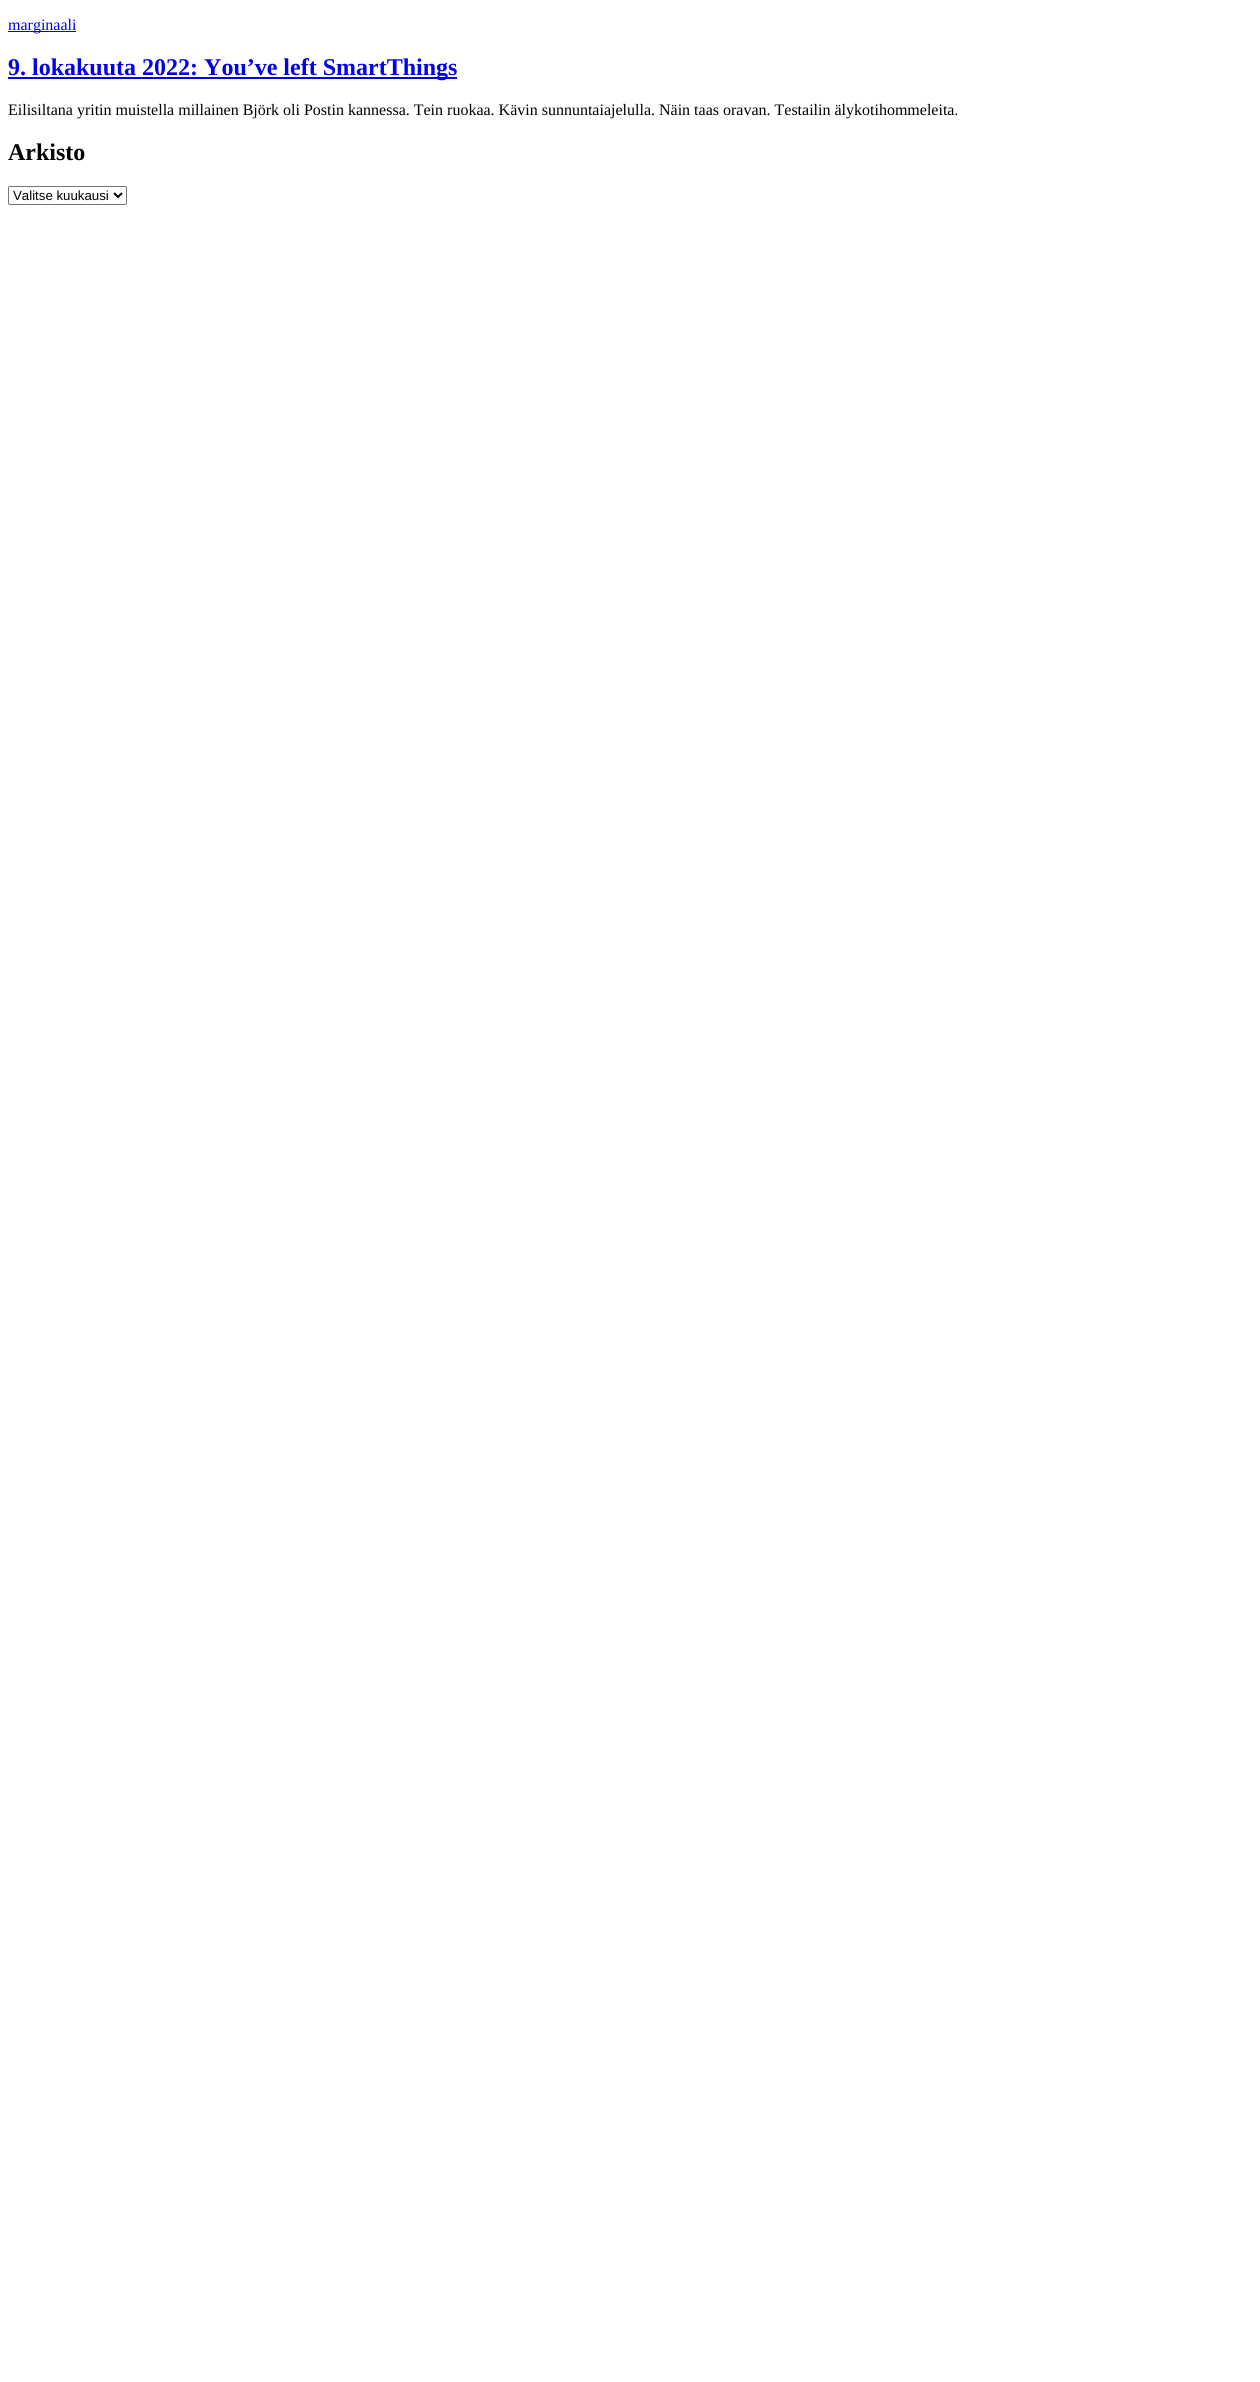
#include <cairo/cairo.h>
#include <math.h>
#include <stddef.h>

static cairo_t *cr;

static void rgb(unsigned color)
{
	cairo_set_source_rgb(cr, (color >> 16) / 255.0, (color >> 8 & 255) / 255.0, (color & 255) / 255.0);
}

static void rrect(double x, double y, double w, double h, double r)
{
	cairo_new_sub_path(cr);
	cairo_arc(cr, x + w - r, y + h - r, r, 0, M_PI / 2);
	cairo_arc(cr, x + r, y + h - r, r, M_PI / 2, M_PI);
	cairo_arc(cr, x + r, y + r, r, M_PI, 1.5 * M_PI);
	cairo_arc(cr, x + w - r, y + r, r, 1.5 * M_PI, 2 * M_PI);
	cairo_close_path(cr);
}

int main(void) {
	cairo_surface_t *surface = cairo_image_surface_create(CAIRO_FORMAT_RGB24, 1260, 2382);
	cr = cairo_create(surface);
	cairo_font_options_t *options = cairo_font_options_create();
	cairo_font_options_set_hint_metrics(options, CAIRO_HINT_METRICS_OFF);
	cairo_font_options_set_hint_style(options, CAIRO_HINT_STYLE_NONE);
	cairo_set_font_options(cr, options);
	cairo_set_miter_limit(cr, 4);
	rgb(0xffffff);
	cairo_paint(cr);
	rgb(0x0000ee);
	cairo_rectangle(cr, 8, 31, 68, 1);
	cairo_fill(cr);
	cairo_rectangle(cr, 8, 77, 449, 2);
	cairo_fill(cr);
	rrect(8.5, 186.5, 118, 18, 1.5);
	rgb(0x767676);
	cairo_set_line_width(cr, 1);
	cairo_stroke(cr);
	cairo_new_path(cr);
	cairo_move_to(cr, 114, 193);
	cairo_line_to(cr, 118, 197);
	cairo_line_to(cr, 122, 193);
	rgb(0x000000);
	cairo_set_line_width(cr, 2);
	cairo_stroke(cr);
	cairo_select_font_face(cr, "Liberation Serif", CAIRO_FONT_SLANT_NORMAL, CAIRO_FONT_WEIGHT_NORMAL);
	cairo_set_font_size(cr, 16);
	rgb(0x0000ee);
	cairo_move_to(cr, 8, 30);
	cairo_show_text(cr, "marginaali");
	cairo_select_font_face(cr, "Liberation Serif", CAIRO_FONT_SLANT_NORMAL, CAIRO_FONT_WEIGHT_BOLD);
	cairo_set_font_size(cr, 24);
	cairo_move_to(cr, 8, 75);
	cairo_show_text(cr, "9. lokakuuta 2022: You’ve left SmartThings");
	cairo_select_font_face(cr, "Liberation Serif", CAIRO_FONT_SLANT_NORMAL, CAIRO_FONT_WEIGHT_NORMAL);
	cairo_set_font_size(cr, 16);
	rgb(0x000000);
	cairo_move_to(cr, 8, 115);
	cairo_show_text(cr, "Eilisiltana yritin muistella millainen Björk oli Postin kannessa. Tein ruokaa. Kävin sunnuntaiajelulla. Näin taas oravan. Testailin älykotihommeleita.");
	cairo_select_font_face(cr, "Liberation Serif", CAIRO_FONT_SLANT_NORMAL, CAIRO_FONT_WEIGHT_BOLD);
	cairo_set_font_size(cr, 24);
	cairo_move_to(cr, 8, 160);
	cairo_show_text(cr, "Arkisto");
	cairo_select_font_face(cr, "Liberation Sans", CAIRO_FONT_SLANT_NORMAL, CAIRO_FONT_WEIGHT_NORMAL);
	cairo_set_font_size(cr, 13.25);
	cairo_move_to(cr, 13, 200);
	cairo_show_text(cr, "Valitse kuukausi");
	cairo_surface_write_to_png(surface, "page.png");
	cairo_font_options_destroy(options);
	cairo_destroy(cr);
	cairo_surface_destroy(surface);
	return 0;
}
